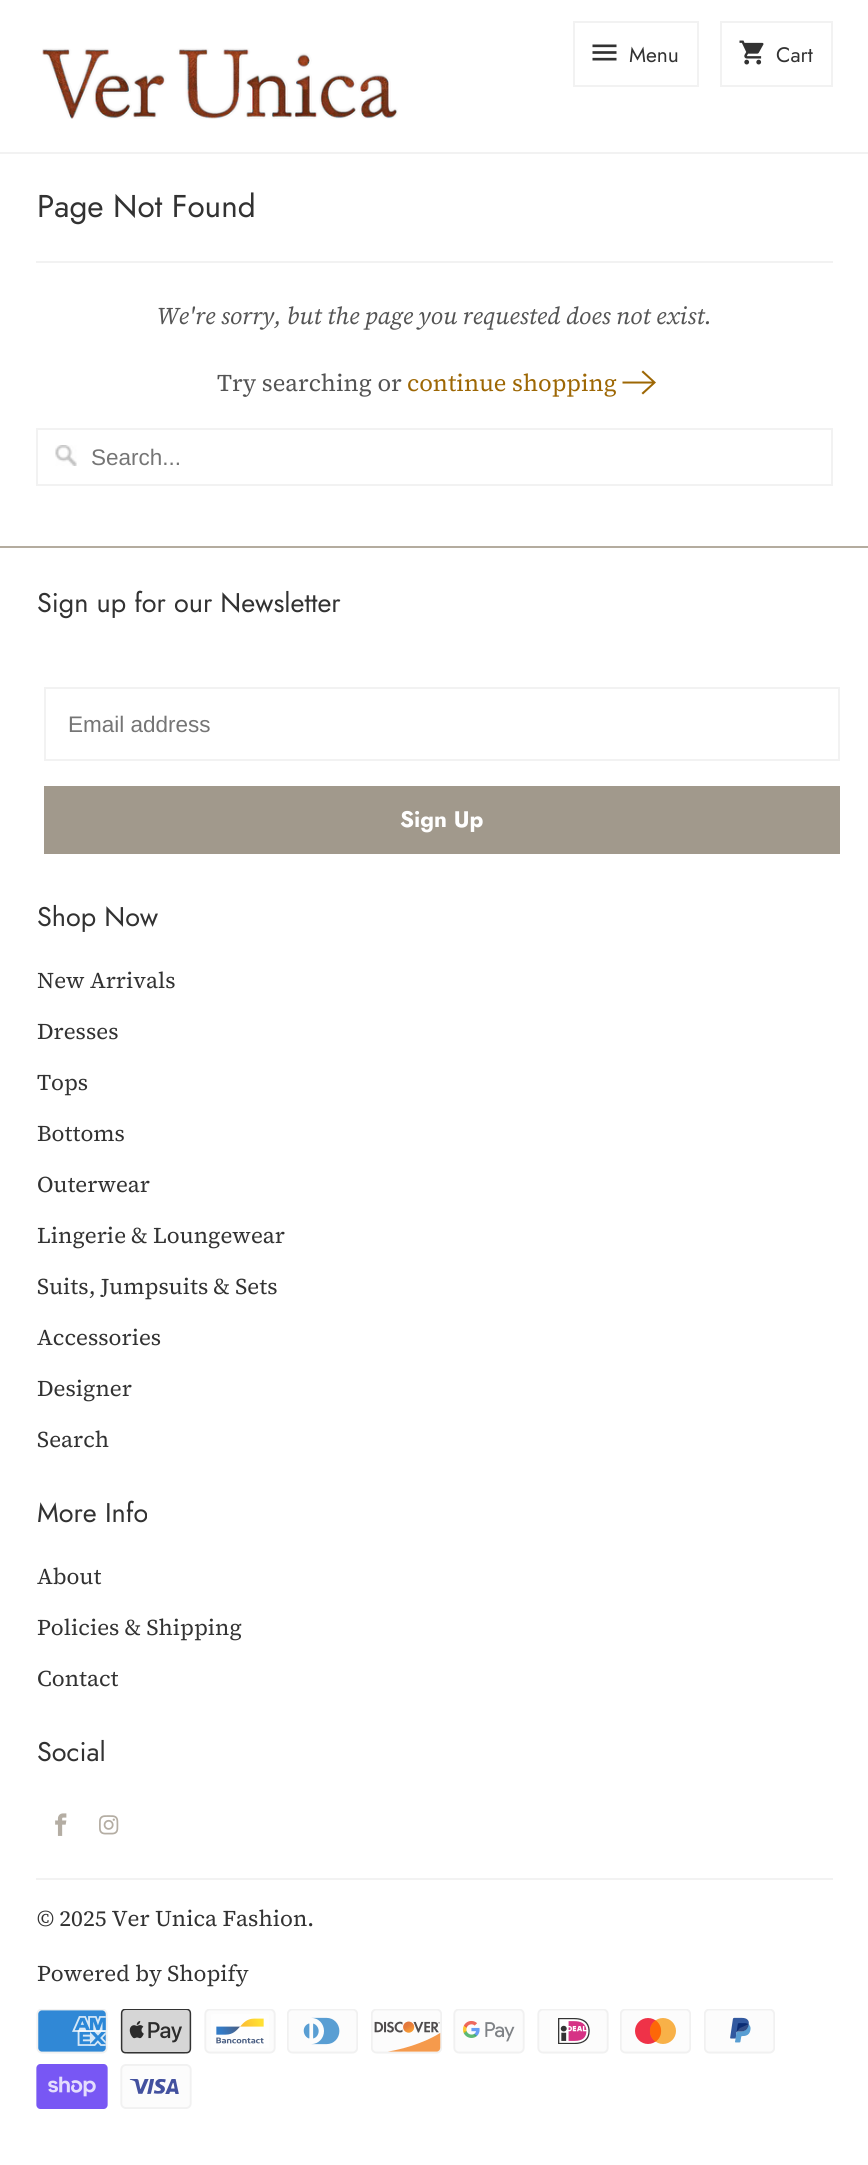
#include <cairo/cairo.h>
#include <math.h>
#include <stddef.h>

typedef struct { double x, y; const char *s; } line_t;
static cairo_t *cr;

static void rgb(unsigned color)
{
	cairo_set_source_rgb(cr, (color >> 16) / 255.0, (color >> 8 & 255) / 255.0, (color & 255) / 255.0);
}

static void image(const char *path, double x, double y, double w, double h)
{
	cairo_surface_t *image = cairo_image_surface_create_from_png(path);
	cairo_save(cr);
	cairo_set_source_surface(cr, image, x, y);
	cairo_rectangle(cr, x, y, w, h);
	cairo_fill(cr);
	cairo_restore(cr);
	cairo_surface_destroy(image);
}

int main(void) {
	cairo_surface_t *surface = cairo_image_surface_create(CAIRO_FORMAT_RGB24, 868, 2165);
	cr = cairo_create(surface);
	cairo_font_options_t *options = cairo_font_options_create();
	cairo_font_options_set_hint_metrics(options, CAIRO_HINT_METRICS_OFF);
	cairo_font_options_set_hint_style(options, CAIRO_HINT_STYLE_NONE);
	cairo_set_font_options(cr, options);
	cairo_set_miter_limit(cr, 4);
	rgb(0xffffff);
	cairo_paint(cr);
	rgb(0xf2f2f2);
	cairo_rectangle(cr, 0, 152, 868, 2);
	cairo_fill(cr);
	image("img/1.png", 42, 48, 356, 71);
	cairo_rectangle(cr, 574, 22, 124, 64);
	cairo_stroke(cr);
	image("img/2.png", 592, 44, 25, 17);
	cairo_rectangle(cr, 721, 22, 111, 64);
	cairo_stroke(cr);
	image("img/3.png", 739, 40, 25, 25);
	cairo_rectangle(cr, 36, 261, 797, 2);
	cairo_fill(cr);
	rgb(0x9d6704);
	cairo_new_path(cr);
	cairo_move_to(cr, 656, 382.5);
	cairo_line_to(cr, 643, 394.5);
	cairo_line_to(cr, 641.5, 393);
	cairo_line_to(cr, 652, 383.5);
	cairo_line_to(cr, 622.5, 383.5);
	cairo_line_to(cr, 622.5, 381.5);
	cairo_line_to(cr, 652, 381.5);
	cairo_line_to(cr, 641.5, 372);
	cairo_line_to(cr, 643, 370.5);
	cairo_close_path(cr);
	cairo_fill(cr);
	image("img/4.png", 55, 445, 22, 21);
	cairo_rectangle(cr, 37, 429, 795, 56);
	rgb(0xf2f2f2);
	cairo_stroke(cr);
	rgb(0xb4ac9f);
	cairo_rectangle(cr, 0, 546, 868, 2);
	cairo_fill(cr);
	cairo_rectangle(cr, 45, 688, 794, 72);
	rgb(0xf2f2f2);
	cairo_stroke(cr);
	rgb(0xa1998c);
	cairo_rectangle(cr, 44, 786, 796, 68);
	cairo_fill(cr);
	image("img/5.png", 55, 1813, 12, 23);
	image("img/6.png", 99, 1815, 20, 20);
	rgb(0xf2f2f2);
	cairo_rectangle(cr, 36, 1878, 797, 2);
	cairo_fill(cr);
	image("img/7.png", 36, 2009, 72, 45);
	image("img/8.png", 120, 2009, 72, 45);
	image("img/9.png", 204, 2009, 72, 45);
	image("img/10.png", 287, 2009, 71, 45);
	image("img/11.png", 371, 2009, 71, 45);
	image("img/12.png", 453, 2009, 72, 45);
	image("img/13.png", 537, 2009, 72, 45);
	image("img/14.png", 620, 2009, 71, 45);
	image("img/15.png", 704, 2009, 71, 45);
	image("img/16.png", 36, 2064, 72, 45);
	image("img/17.png", 120, 2064, 72, 45);
	cairo_select_font_face(cr, "Jost", CAIRO_FONT_SLANT_NORMAL, CAIRO_FONT_WEIGHT_NORMAL);
	cairo_set_font_size(cr, 21);
	rgb(0x323232);
	cairo_move_to(cr, 629, 62);
	cairo_show_text(cr, "Menu");
	cairo_move_to(cr, 776, 62);
	cairo_show_text(cr, "Cart");
	cairo_set_font_size(cr, 31.5);
	cairo_move_to(cr, 37, 217);
	cairo_show_text(cr, "Page Not Found");
	cairo_select_font_face(cr, "Source Serif 4", CAIRO_FONT_SLANT_ITALIC, CAIRO_FONT_WEIGHT_NORMAL);
	cairo_set_font_size(cr, 24);
	rgb(0x545454);
	cairo_move_to(cr, 157, 324);
	cairo_show_text(cr, "We're sorry, but the page you requested does not exist.");
	cairo_select_font_face(cr, "Source Serif 4", CAIRO_FONT_SLANT_NORMAL, CAIRO_FONT_WEIGHT_NORMAL);
	cairo_move_to(cr, 217, 391);
	cairo_show_text(cr, "Try searching or");
	rgb(0x9d6704);
	cairo_move_to(cr, 407, 391);
	cairo_show_text(cr, "continue shopping");
	cairo_select_font_face(cr, "Liberation Sans", CAIRO_FONT_SLANT_NORMAL, CAIRO_FONT_WEIGHT_NORMAL);
	cairo_set_font_size(cr, 22.5);
	rgb(0x757575);
	cairo_move_to(cr, 91, 465);
	cairo_show_text(cr, "Search...");
	cairo_select_font_face(cr, "Jost", CAIRO_FONT_SLANT_NORMAL, CAIRO_FONT_WEIGHT_NORMAL);
	cairo_set_font_size(cr, 27);
	rgb(0x323232);
	cairo_move_to(cr, 37, 612);
	cairo_show_text(cr, "Sign up for our Newsletter");
	cairo_select_font_face(cr, "Liberation Sans", CAIRO_FONT_SLANT_NORMAL, CAIRO_FONT_WEIGHT_NORMAL);
	cairo_set_font_size(cr, 22.5);
	rgb(0x757575);
	cairo_move_to(cr, 68, 732);
	cairo_show_text(cr, "Email address");
	cairo_select_font_face(cr, "Jost", CAIRO_FONT_SLANT_NORMAL, CAIRO_FONT_WEIGHT_BOLD);
	rgb(0xffffff);
	cairo_move_to(cr, 400, 827);
	cairo_show_text(cr, "Sign Up");
	cairo_select_font_face(cr, "Jost", CAIRO_FONT_SLANT_NORMAL, CAIRO_FONT_WEIGHT_NORMAL);
	cairo_set_font_size(cr, 27);
	rgb(0x323232);
	cairo_move_to(cr, 37, 926);
	cairo_show_text(cr, "Shop Now");
	cairo_select_font_face(cr, "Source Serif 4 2", CAIRO_FONT_SLANT_NORMAL, CAIRO_FONT_WEIGHT_NORMAL);
	cairo_set_font_size(cr, 22.5);
	{
		static const line_t items[] = {
			{37, 988, "New Arrivals"},
			{37, 1039, "Dresses"},
			{37, 1090, "Tops"},
			{37, 1141, "Bottoms"},
			{37, 1192, "Outerwear"},
			{37, 1243, "Lingerie & Loungewear"},
			{37, 1294, "Suits, Jumpsuits & Sets"},
			{37, 1345, "Accessories"},
			{37, 1396, "Designer"},
			{37, 1447, "Search"},
		};
		for (size_t i = 0; i < sizeof items / sizeof *items; i++) {
			cairo_move_to(cr, items[i].x, items[i].y);
			cairo_show_text(cr, items[i].s);
		}
	}
	cairo_select_font_face(cr, "Jost", CAIRO_FONT_SLANT_NORMAL, CAIRO_FONT_WEIGHT_NORMAL);
	cairo_set_font_size(cr, 27);
	cairo_move_to(cr, 37, 1522);
	cairo_show_text(cr, "More Info");
	cairo_select_font_face(cr, "Source Serif 4 2", CAIRO_FONT_SLANT_NORMAL, CAIRO_FONT_WEIGHT_NORMAL);
	cairo_set_font_size(cr, 22.5);
	{
		static const line_t items[] = {
			{37, 1584, "About"},
			{37, 1635, "Policies & Shipping"},
			{37, 1686, "Contact"},
		};
		for (size_t i = 0; i < sizeof items / sizeof *items; i++) {
			cairo_move_to(cr, items[i].x, items[i].y);
			cairo_show_text(cr, items[i].s);
		}
	}
	cairo_select_font_face(cr, "Jost", CAIRO_FONT_SLANT_NORMAL, CAIRO_FONT_WEIGHT_NORMAL);
	cairo_set_font_size(cr, 27);
	cairo_move_to(cr, 37, 1761);
	cairo_show_text(cr, "Social");
	cairo_select_font_face(cr, "Source Serif 4 2", CAIRO_FONT_SLANT_NORMAL, CAIRO_FONT_WEIGHT_NORMAL);
	cairo_set_font_size(cr, 22.5);
	cairo_move_to(cr, 37, 1926);
	cairo_show_text(cr, "© 2025 Ver Unica Fashion.");
	cairo_move_to(cr, 37, 1981);
	cairo_show_text(cr, "Powered by Shopify");
	cairo_surface_write_to_png(surface, "page.png");
	cairo_font_options_destroy(options);
	cairo_destroy(cr);
	cairo_surface_destroy(surface);
	return 0;
}
